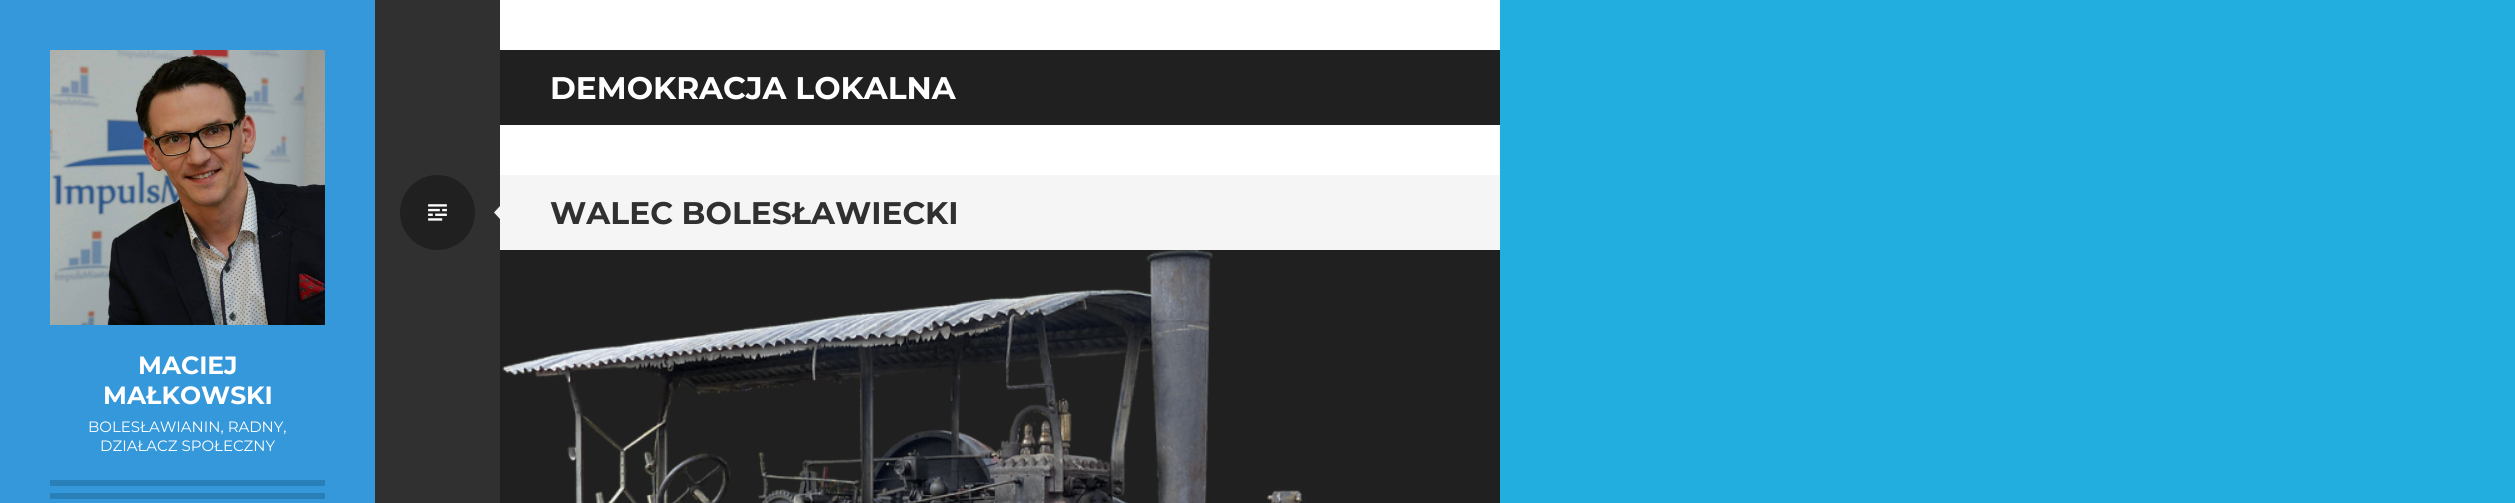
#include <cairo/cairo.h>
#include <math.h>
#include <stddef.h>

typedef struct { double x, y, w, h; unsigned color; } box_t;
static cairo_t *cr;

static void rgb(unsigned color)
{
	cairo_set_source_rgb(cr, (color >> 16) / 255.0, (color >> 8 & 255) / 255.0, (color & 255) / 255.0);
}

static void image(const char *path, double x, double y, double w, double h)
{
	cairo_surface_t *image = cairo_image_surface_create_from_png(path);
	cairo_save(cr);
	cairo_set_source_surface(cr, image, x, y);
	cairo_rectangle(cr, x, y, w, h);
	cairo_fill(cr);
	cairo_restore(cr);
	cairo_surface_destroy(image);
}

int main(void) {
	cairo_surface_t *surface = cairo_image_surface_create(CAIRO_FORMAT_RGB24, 2515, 503);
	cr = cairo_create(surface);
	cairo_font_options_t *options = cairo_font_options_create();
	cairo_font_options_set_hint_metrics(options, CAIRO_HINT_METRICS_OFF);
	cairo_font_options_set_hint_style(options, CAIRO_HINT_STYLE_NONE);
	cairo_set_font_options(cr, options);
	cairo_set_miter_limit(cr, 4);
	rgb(0x23aee0);
	cairo_paint(cr);
	{
		static const box_t items[] = {
			{0, 0, 375, 503, 0x3498db},
			{375, 0, 125, 503, 0x303030},
			{500, 0, 1000, 175, 0xffffff},
			{500, 50, 1000, 75, 0x202020},
		};
		for (size_t i = 0; i < sizeof items / sizeof *items; i++) {
			rgb(items[i].color);
			cairo_rectangle(cr, items[i].x, items[i].y, items[i].w, items[i].h);
			cairo_fill(cr);
		}
	}
	cairo_arc(cr, 437.5, 212.5, 37.5, 0, 2 * M_PI);
	cairo_fill(cr);
	image("img/1.png", 428, 204, 19, 17);
	rgb(0xf5f5f5);
	cairo_rectangle(cr, 500, 175, 1000, 75);
	cairo_fill(cr);
	cairo_new_path(cr);
	cairo_move_to(cr, 500, 206);
	cairo_line_to(cr, 500, 219);
	cairo_line_to(cr, 494, 212.5);
	cairo_close_path(cr);
	cairo_fill(cr);
	rgb(0x202020);
	cairo_rectangle(cr, 500, 250, 1000, 253);
	cairo_fill(cr);
	image("img/2.png", 502, 250, 803, 253);
	image("img/3.png", 50, 50, 275, 275);
	rgb(0x2980b9);
	cairo_rectangle(cr, 50, 480, 275, 6);
	cairo_fill(cr);
	cairo_rectangle(cr, 50, 493, 275, 6);
	cairo_fill(cr);
	cairo_select_font_face(cr, "Montserrat", CAIRO_FONT_SLANT_NORMAL, CAIRO_FONT_WEIGHT_BOLD);
	cairo_set_font_size(cr, 31.25);
	rgb(0xffffff);
	cairo_move_to(cr, 550, 99);
	cairo_show_text(cr, "DEMOKRACJA LOKALNA");
	rgb(0x303030);
	cairo_move_to(cr, 550, 224);
	cairo_show_text(cr, "WALEC BOLESŁAWIECKI");
	cairo_set_font_size(cr, 25);
	rgb(0xffffff);
	cairo_move_to(cr, 138, 374);
	cairo_show_text(cr, "MACIEJ");
	cairo_move_to(cr, 103, 404);
	cairo_show_text(cr, "MAŁKOWSKI");
	cairo_select_font_face(cr, "Montserrat", CAIRO_FONT_SLANT_NORMAL, CAIRO_FONT_WEIGHT_NORMAL);
	cairo_set_font_size(cr, 15);
	cairo_move_to(cr, 88, 432);
	cairo_show_text(cr, "BOLESŁAWIANIN, RADNY,");
	cairo_move_to(cr, 100, 451);
	cairo_show_text(cr, "DZIAŁACZ SPOŁECZNY");
	cairo_surface_write_to_png(surface, "page.png");
	cairo_font_options_destroy(options);
	cairo_destroy(cr);
	cairo_surface_destroy(surface);
	return 0;
}
